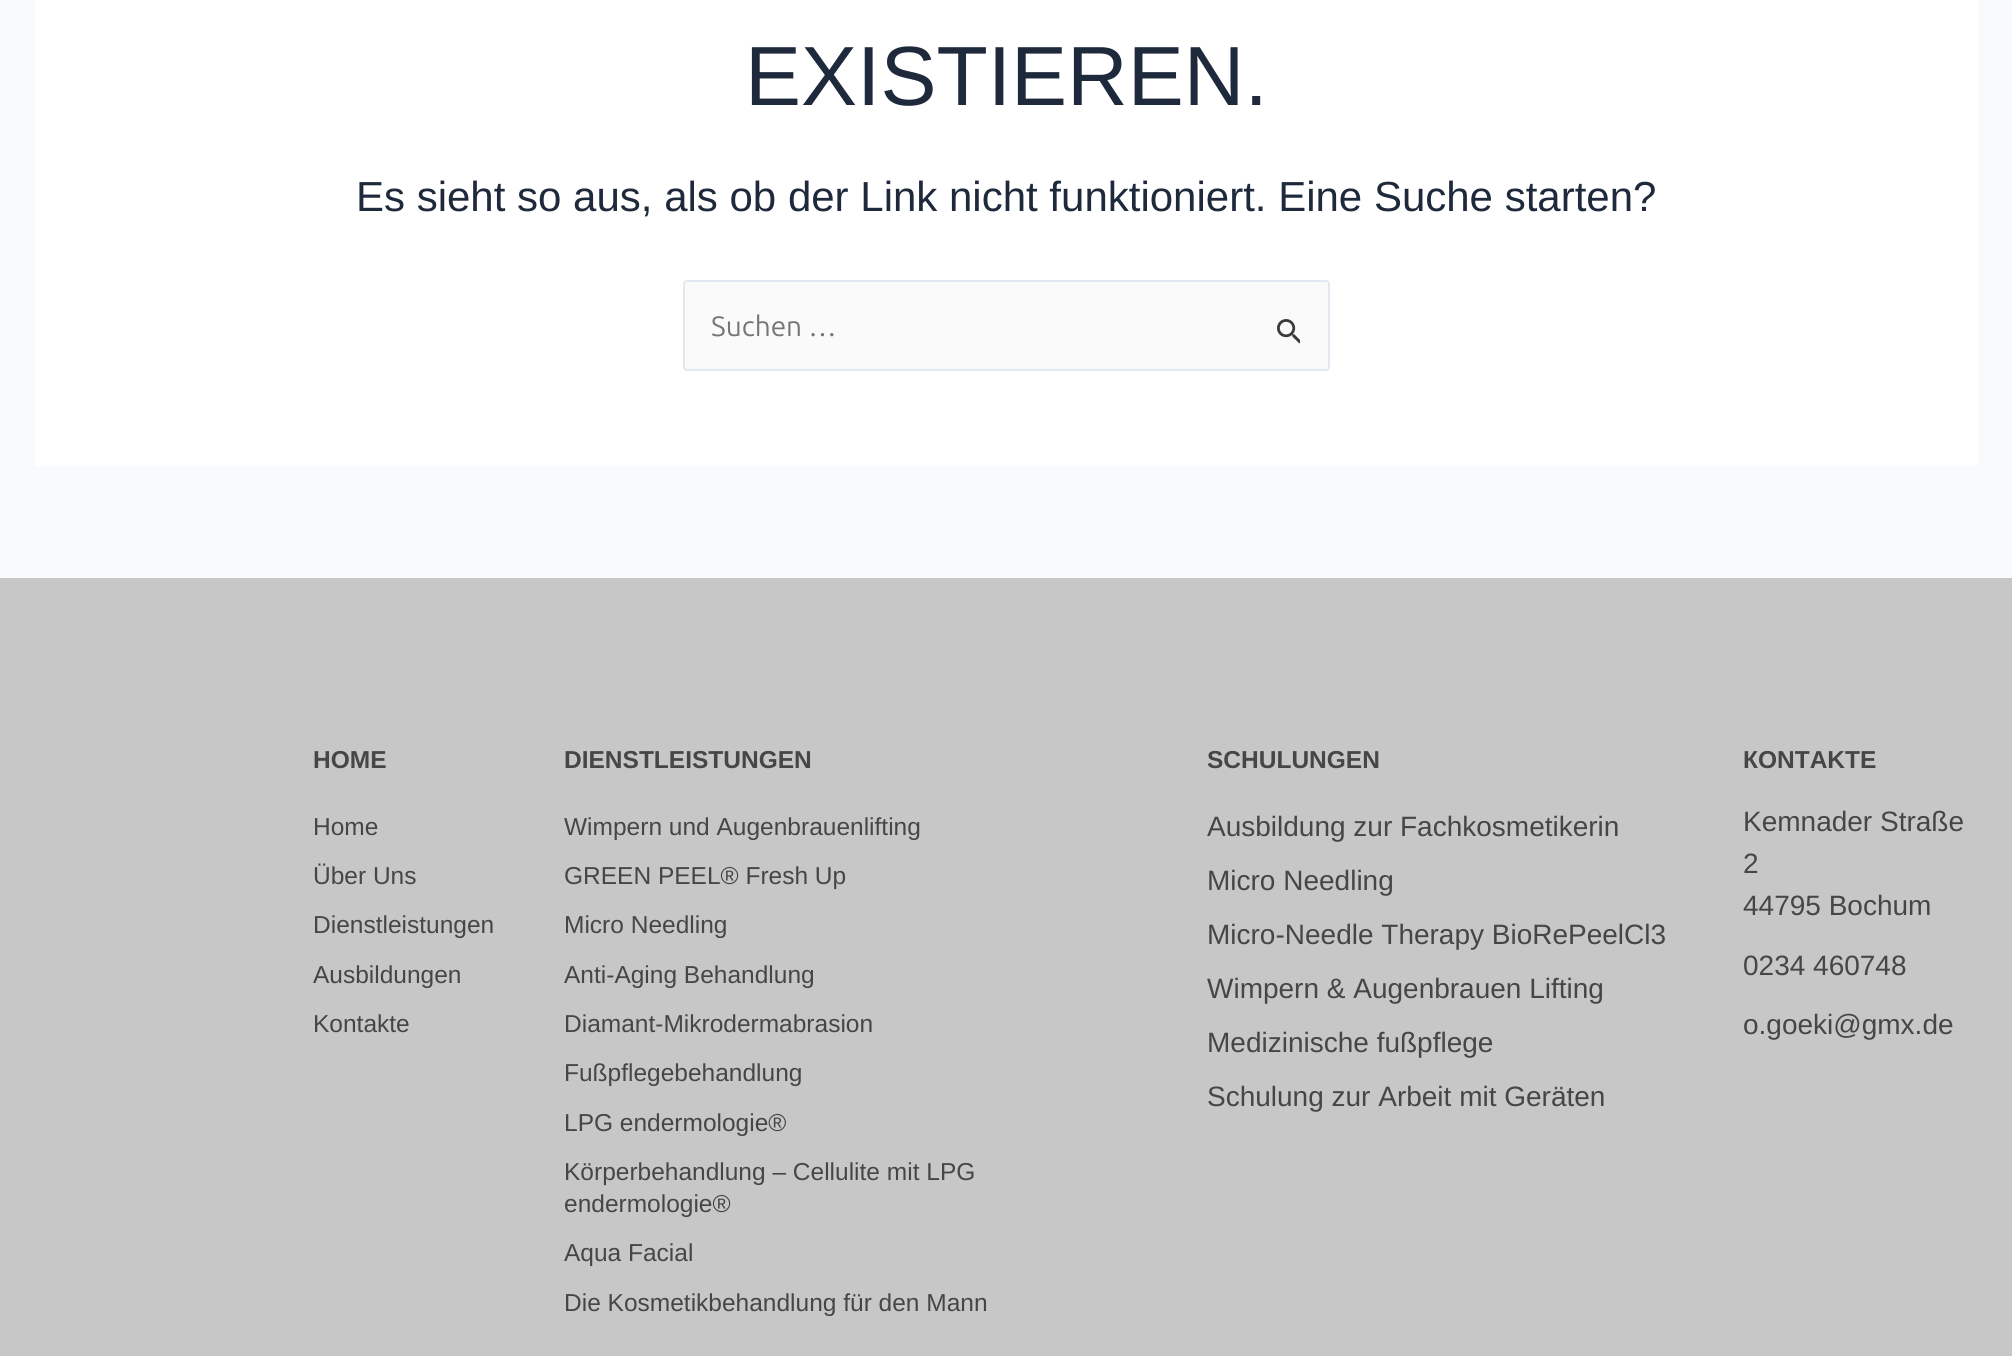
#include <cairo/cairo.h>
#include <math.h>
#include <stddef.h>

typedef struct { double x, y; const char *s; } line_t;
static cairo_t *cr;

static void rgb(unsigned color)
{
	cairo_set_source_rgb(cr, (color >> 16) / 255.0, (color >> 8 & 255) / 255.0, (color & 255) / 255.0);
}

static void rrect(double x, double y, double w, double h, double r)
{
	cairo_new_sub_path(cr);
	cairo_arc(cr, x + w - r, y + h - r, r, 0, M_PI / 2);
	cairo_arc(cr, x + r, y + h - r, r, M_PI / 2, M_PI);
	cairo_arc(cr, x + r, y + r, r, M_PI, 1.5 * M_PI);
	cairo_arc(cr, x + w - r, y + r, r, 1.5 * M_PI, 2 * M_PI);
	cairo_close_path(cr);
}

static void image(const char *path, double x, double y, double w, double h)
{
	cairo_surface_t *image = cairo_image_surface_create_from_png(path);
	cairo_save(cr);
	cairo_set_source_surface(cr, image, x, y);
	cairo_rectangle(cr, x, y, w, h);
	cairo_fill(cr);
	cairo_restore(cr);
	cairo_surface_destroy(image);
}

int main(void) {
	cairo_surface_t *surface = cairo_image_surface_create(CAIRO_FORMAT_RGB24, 2012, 1356);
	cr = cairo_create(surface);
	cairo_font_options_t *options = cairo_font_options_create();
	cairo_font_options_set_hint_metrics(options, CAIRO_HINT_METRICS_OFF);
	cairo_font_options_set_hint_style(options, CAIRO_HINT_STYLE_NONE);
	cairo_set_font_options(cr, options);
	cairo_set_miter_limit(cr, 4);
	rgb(0xf9fafb);
	cairo_paint(cr);
	rgb(0xffffff);
	cairo_rectangle(cr, 35, 0, 1943, 466);
	cairo_fill(cr);
	rgb(0xfafafa);
	rrect(684, 281, 645, 89, 3);
	cairo_fill_preserve(cr);
	rgb(0xe2e8f0);
	cairo_stroke(cr);
	image("img/1.png", 1277, 319, 23, 25);
	rgb(0xc7c7c7);
	cairo_rectangle(cr, 0, 578, 2012, 778);
	cairo_fill(cr);
	cairo_select_font_face(cr, "Liberation Sans", CAIRO_FONT_SLANT_NORMAL, CAIRO_FONT_WEIGHT_NORMAL);
	cairo_set_font_size(cr, 84);
	rgb(0x1e293b);
	cairo_move_to(cr, 745, 105);
	cairo_show_text(cr, "EXISTIEREN.");
	cairo_set_font_size(cr, 42);
	cairo_move_to(cr, 356, 211);
	cairo_show_text(cr, "Es sieht so aus, als ob der Link nicht funktioniert. Eine Suche starten?");
	cairo_select_font_face(cr, "Ubuntu", CAIRO_FONT_SLANT_NORMAL, CAIRO_FONT_WEIGHT_NORMAL);
	cairo_set_font_size(cr, 28);
	rgb(0x757575);
	cairo_move_to(cr, 711, 336);
	cairo_show_text(cr, "Suchen …");
	cairo_select_font_face(cr, "Liberation Sans", CAIRO_FONT_SLANT_NORMAL, CAIRO_FONT_WEIGHT_BOLD);
	cairo_set_font_size(cr, 24.5);
	rgb(0x464646);
	cairo_move_to(cr, 313, 768);
	cairo_show_text(cr, "HOME");
	cairo_select_font_face(cr, "Liberation Sans", CAIRO_FONT_SLANT_NORMAL, CAIRO_FONT_WEIGHT_NORMAL);
	{
		static const line_t items[] = {
			{313, 835, "Home"},
			{313, 884, "Über Uns"},
			{313, 933, "Dienstleistungen"},
			{313, 983, "Ausbildungen"},
			{313, 1032, "Kontakte"},
		};
		for (size_t i = 0; i < sizeof items / sizeof *items; i++) {
			cairo_move_to(cr, items[i].x, items[i].y);
			cairo_show_text(cr, items[i].s);
		}
	}
	cairo_select_font_face(cr, "Liberation Sans", CAIRO_FONT_SLANT_NORMAL, CAIRO_FONT_WEIGHT_BOLD);
	cairo_move_to(cr, 564, 768);
	cairo_show_text(cr, "DIENSTLEISTUNGEN");
	cairo_select_font_face(cr, "Liberation Sans", CAIRO_FONT_SLANT_NORMAL, CAIRO_FONT_WEIGHT_NORMAL);
	{
		static const line_t items[] = {
			{564, 835, "Wimpern und Augenbrauenlifting"},
			{564, 884, "GREEN PEEL® Fresh Up"},
			{564, 933, "Micro Needling"},
			{564, 983, "Anti-Aging Behandlung"},
			{564, 1032, "Diamant-Mikrodermabrasion"},
			{564, 1081, "Fußpflegebehandlung"},
			{564, 1131, "LPG endermologie®"},
			{564, 1180, "Körperbehandlung – Cellulite mit LPG"},
			{564, 1212, "endermologie®"},
			{564, 1261, "Aqua Facial"},
			{564, 1311, "Die Kosmetikbehandlung für den Mann"},
		};
		for (size_t i = 0; i < sizeof items / sizeof *items; i++) {
			cairo_move_to(cr, items[i].x, items[i].y);
			cairo_show_text(cr, items[i].s);
		}
	}
	cairo_select_font_face(cr, "Liberation Sans", CAIRO_FONT_SLANT_NORMAL, CAIRO_FONT_WEIGHT_BOLD);
	cairo_move_to(cr, 1207, 768);
	cairo_show_text(cr, "SCHULUNGEN");
	cairo_select_font_face(cr, "Liberation Sans", CAIRO_FONT_SLANT_NORMAL, CAIRO_FONT_WEIGHT_NORMAL);
	cairo_set_font_size(cr, 28);
	{
		static const line_t items[] = {
			{1207, 836, "Ausbildung zur Fachkosmetikerin"},
			{1207, 890, "Micro Needling"},
			{1207, 944, "Micro-Needle Therapy BioRePeelCl3"},
			{1207, 998, "Wimpern & Augenbrauen Lifting"},
			{1207, 1052, "Medizinische fußpflege"},
			{1207, 1106, "Schulung zur Arbeit mit Geräten"},
		};
		for (size_t i = 0; i < sizeof items / sizeof *items; i++) {
			cairo_move_to(cr, items[i].x, items[i].y);
			cairo_show_text(cr, items[i].s);
		}
	}
	cairo_select_font_face(cr, "Liberation Sans", CAIRO_FONT_SLANT_NORMAL, CAIRO_FONT_WEIGHT_BOLD);
	cairo_set_font_size(cr, 24.5);
	cairo_move_to(cr, 1743, 768);
	cairo_show_text(cr, "КONTAKTE");
	cairo_select_font_face(cr, "Liberation Sans", CAIRO_FONT_SLANT_NORMAL, CAIRO_FONT_WEIGHT_NORMAL);
	cairo_set_font_size(cr, 28);
	{
		static const line_t items[] = {
			{1743, 831, "Kemnader Straße"},
			{1743, 873, "2"},
			{1743, 915, "44795 Bochum"},
			{1743, 975, "0234 460748"},
			{1743, 1034, "o.goeki@gmx.de"},
		};
		for (size_t i = 0; i < sizeof items / sizeof *items; i++) {
			cairo_move_to(cr, items[i].x, items[i].y);
			cairo_show_text(cr, items[i].s);
		}
	}
	cairo_surface_write_to_png(surface, "page.png");
	cairo_font_options_destroy(options);
	cairo_destroy(cr);
	cairo_surface_destroy(surface);
	return 0;
}
